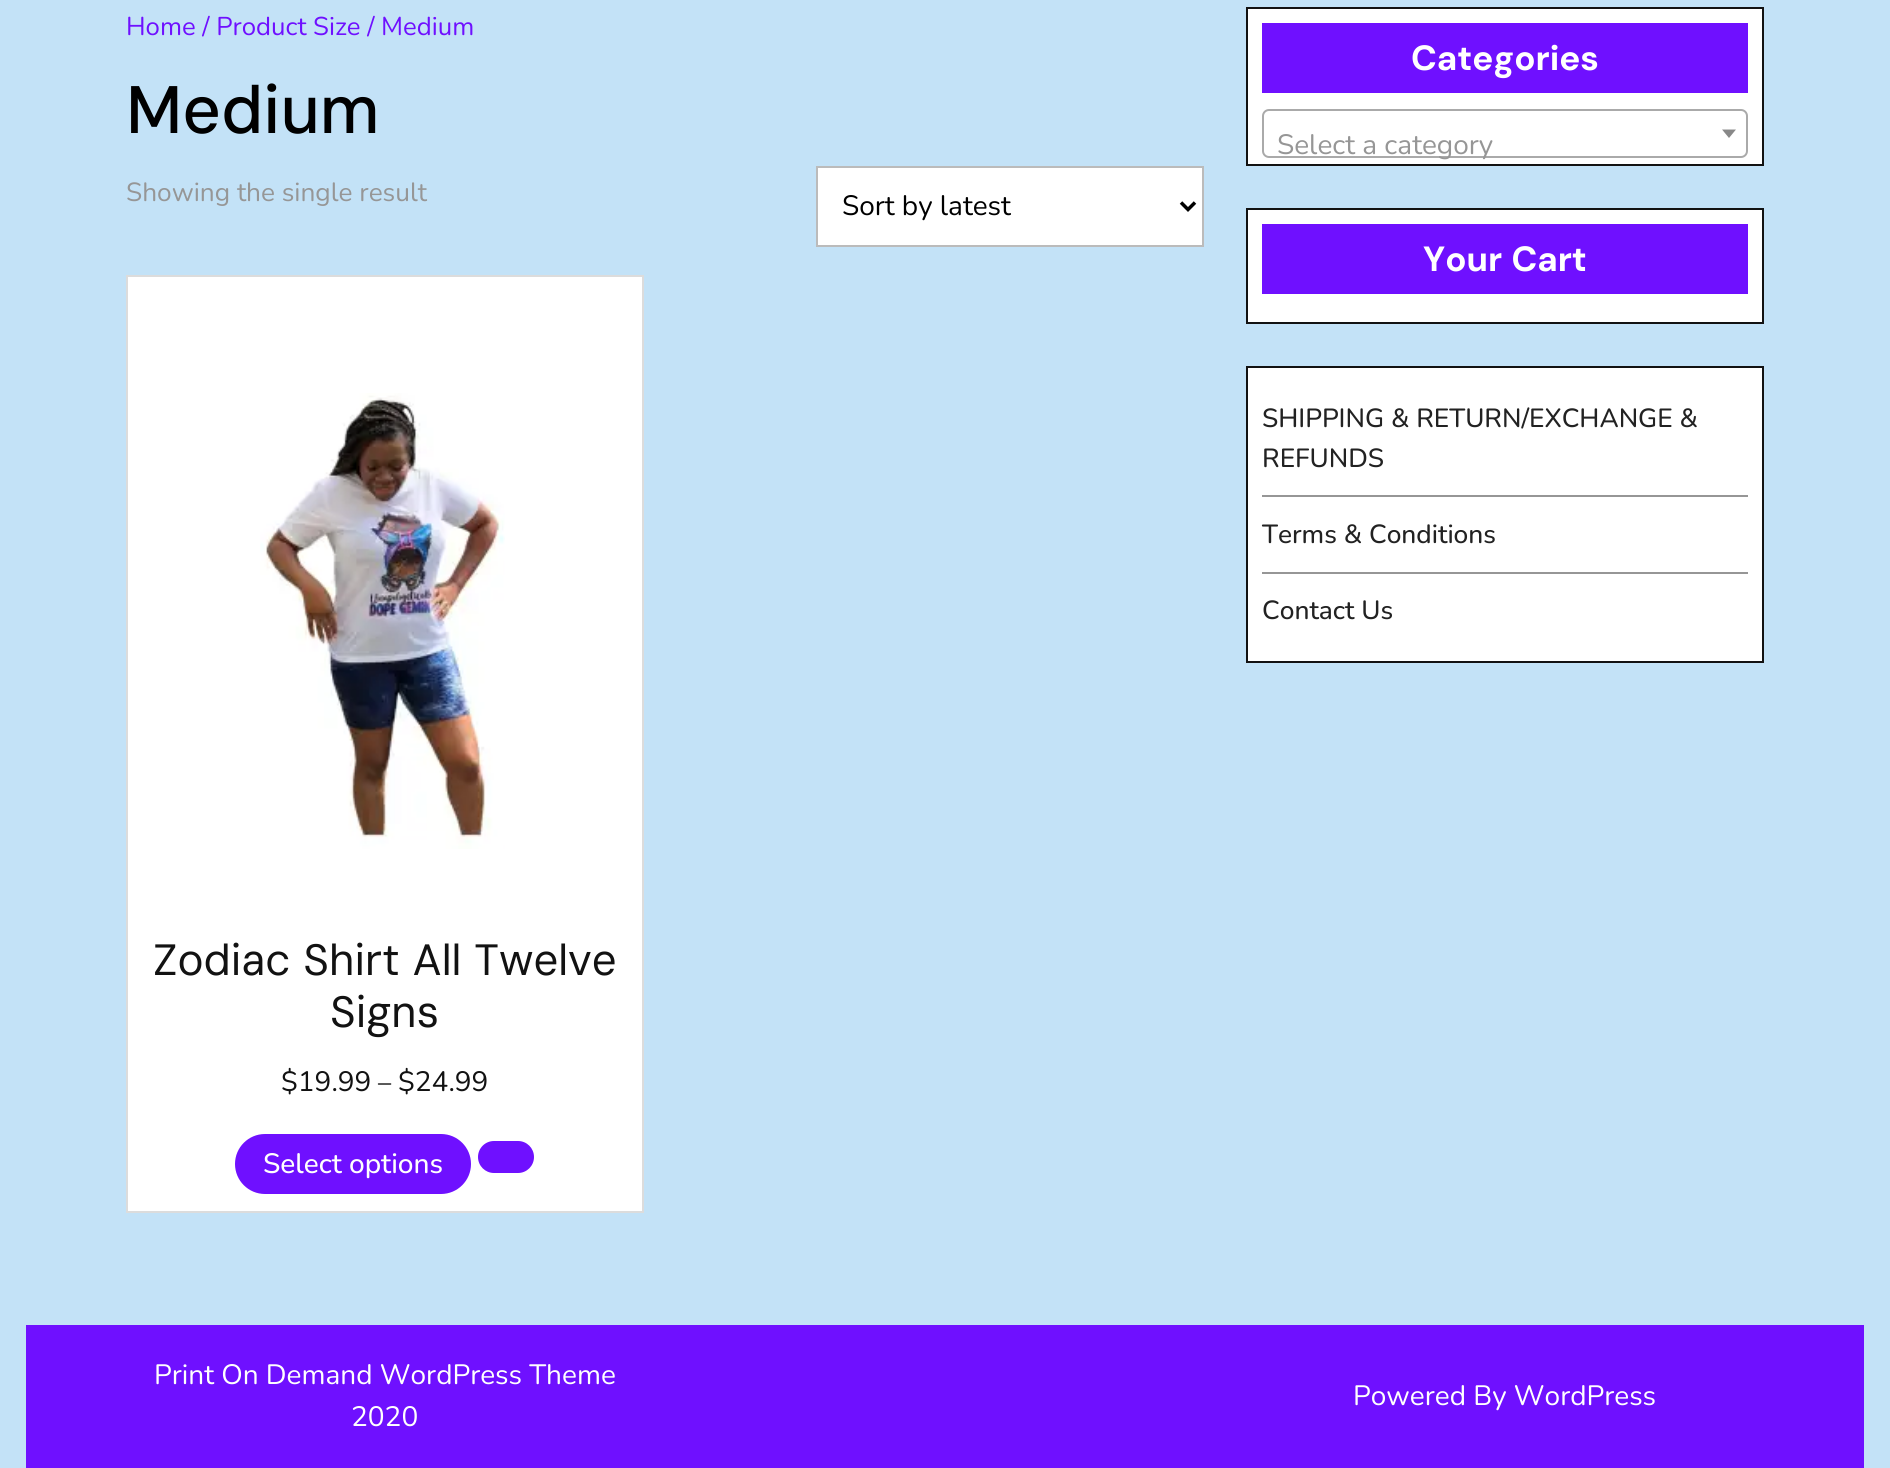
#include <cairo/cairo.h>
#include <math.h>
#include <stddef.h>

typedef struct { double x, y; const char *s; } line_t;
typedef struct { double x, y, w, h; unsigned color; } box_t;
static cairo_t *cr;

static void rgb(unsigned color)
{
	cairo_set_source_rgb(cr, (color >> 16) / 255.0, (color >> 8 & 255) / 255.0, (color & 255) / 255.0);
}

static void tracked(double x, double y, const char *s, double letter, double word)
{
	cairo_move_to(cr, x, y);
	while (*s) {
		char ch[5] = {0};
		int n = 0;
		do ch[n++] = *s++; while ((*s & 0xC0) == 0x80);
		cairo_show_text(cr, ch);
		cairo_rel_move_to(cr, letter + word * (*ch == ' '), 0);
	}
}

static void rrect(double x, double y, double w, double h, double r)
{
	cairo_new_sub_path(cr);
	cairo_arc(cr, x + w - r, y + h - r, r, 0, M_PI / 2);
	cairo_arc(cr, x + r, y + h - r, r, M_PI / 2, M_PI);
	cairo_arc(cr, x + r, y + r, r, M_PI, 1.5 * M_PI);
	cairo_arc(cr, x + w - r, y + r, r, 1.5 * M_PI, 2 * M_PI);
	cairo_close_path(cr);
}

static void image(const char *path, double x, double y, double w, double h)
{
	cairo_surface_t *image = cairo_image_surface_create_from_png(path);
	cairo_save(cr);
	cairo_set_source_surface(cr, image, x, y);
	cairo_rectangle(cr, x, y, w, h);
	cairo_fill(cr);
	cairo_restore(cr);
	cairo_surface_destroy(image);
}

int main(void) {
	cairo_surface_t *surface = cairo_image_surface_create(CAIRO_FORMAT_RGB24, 1890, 1468);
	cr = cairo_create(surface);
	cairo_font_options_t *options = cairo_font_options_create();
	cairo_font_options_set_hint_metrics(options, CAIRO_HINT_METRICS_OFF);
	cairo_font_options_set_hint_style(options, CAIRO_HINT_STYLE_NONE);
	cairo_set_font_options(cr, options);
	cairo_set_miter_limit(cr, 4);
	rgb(0xc3e2f7);
	cairo_paint(cr);
	rgb(0xffffff);
	cairo_rectangle(cr, 817, 167, 386, 79);
	cairo_fill_preserve(cr);
	rgb(0xbbbbbb);
	cairo_stroke(cr);
	cairo_new_path(cr);
	cairo_move_to(cr, 1181, 202.5);
	cairo_line_to(cr, 1188, 209.5);
	cairo_line_to(cr, 1195, 202.5);
	rgb(0x000000);
	cairo_set_line_width(cr, 3.5);
	cairo_stroke(cr);
	rgb(0xffffff);
	cairo_rectangle(cr, 127, 276, 516, 936);
	cairo_fill_preserve(cr);
	rgb(0xdcdcdc);
	cairo_set_line_width(cr, 2);
	cairo_stroke(cr);
	image("img/1.png", 260, 393, 245, 456);
	rgb(0x6f10ff);
	rrect(235, 1134, 236, 60, 30);
	cairo_fill(cr);
	rrect(478, 1141, 56, 32, 16);
	cairo_fill(cr);
	rgb(0xffffff);
	cairo_rectangle(cr, 1247, 8, 516, 157);
	cairo_fill_preserve(cr);
	rgb(0x121212);
	cairo_stroke(cr);
	rgb(0x6f10ff);
	cairo_rectangle(cr, 1262, 23, 486, 70);
	cairo_fill(cr);
	rrect(1263, 110, 484, 47, 6);
	rgb(0xaaaaaa);
	cairo_stroke(cr);
	rgb(0x888888);
	cairo_new_path(cr);
	cairo_move_to(cr, 1722, 129.5);
	cairo_line_to(cr, 1736, 129.5);
	cairo_line_to(cr, 1729, 138);
	cairo_close_path(cr);
	cairo_fill(cr);
	rgb(0xffffff);
	cairo_rectangle(cr, 1247, 209, 516, 114);
	cairo_fill_preserve(cr);
	rgb(0x121212);
	cairo_stroke(cr);
	rgb(0x6f10ff);
	cairo_rectangle(cr, 1262, 224, 486, 70);
	cairo_fill(cr);
	rgb(0xffffff);
	cairo_rectangle(cr, 1247, 367, 516, 295);
	cairo_fill_preserve(cr);
	rgb(0x121212);
	cairo_stroke(cr);
	{
		static const box_t items[] = {
			{1262, 495, 486, 2, 0x969696},
			{1262, 572, 486, 2, 0x969696},
			{26, 1325, 1838, 143, 0x6f10ff},
		};
		for (size_t i = 0; i < sizeof items / sizeof *items; i++) {
			rgb(items[i].color);
			cairo_rectangle(cr, items[i].x, items[i].y, items[i].w, items[i].h);
			cairo_fill(cr);
		}
	}
	cairo_select_font_face(cr, "Nunito", CAIRO_FONT_SLANT_NORMAL, CAIRO_FONT_WEIGHT_NORMAL);
	cairo_set_font_size(cr, 25.75);
	cairo_move_to(cr, 126, 35);
	cairo_show_text(cr, "Home / Product Size / Medium");
	cairo_select_font_face(cr, "DM Sans Medium", CAIRO_FONT_SLANT_NORMAL, CAIRO_FONT_WEIGHT_NORMAL);
	cairo_set_font_size(cr, 67);
	rgb(0x000000);
	cairo_move_to(cr, 126, 133);
	cairo_show_text(cr, "Medium");
	cairo_select_font_face(cr, "Nunito", CAIRO_FONT_SLANT_NORMAL, CAIRO_FONT_WEIGHT_NORMAL);
	cairo_set_font_size(cr, 26.25);
	rgb(0x969696);
	cairo_move_to(cr, 126, 201);
	cairo_show_text(cr, "Showing the single result");
	cairo_set_font_size(cr, 28);
	rgb(0x000000);
	cairo_move_to(cr, 842, 215);
	cairo_show_text(cr, "Sort by latest");
	cairo_select_font_face(cr, "DM Sans", CAIRO_FONT_SLANT_NORMAL, CAIRO_FONT_WEIGHT_NORMAL);
	cairo_set_font_size(cr, 43.75);
	rgb(0x121212);
	tracked(153, 975, "Zodiac Shirt All Twelve", 0, 1);
	cairo_move_to(cr, 330, 1027);
	cairo_show_text(cr, "Signs");
	cairo_select_font_face(cr, "Nunito", CAIRO_FONT_SLANT_NORMAL, CAIRO_FONT_WEIGHT_NORMAL);
	cairo_set_font_size(cr, 28);
	cairo_move_to(cr, 281, 1091);
	cairo_show_text(cr, "$19.99");
	cairo_set_font_size(cr, 26.25);
	cairo_move_to(cr, 378, 1091);
	cairo_show_text(cr, "–");
	cairo_set_font_size(cr, 28);
	cairo_move_to(cr, 398, 1091);
	cairo_show_text(cr, "$24.99");
	cairo_select_font_face(cr, "Nunito Medium", CAIRO_FONT_SLANT_NORMAL, CAIRO_FONT_WEIGHT_NORMAL);
	rgb(0xffffff);
	cairo_move_to(cr, 263, 1173);
	cairo_show_text(cr, "Select options");
	cairo_select_font_face(cr, "DM Sans", CAIRO_FONT_SLANT_NORMAL, CAIRO_FONT_WEIGHT_BOLD);
	cairo_set_font_size(cr, 35);
	cairo_move_to(cr, 1411, 70);
	cairo_show_text(cr, "Categories");
	cairo_select_font_face(cr, "Nunito", CAIRO_FONT_SLANT_NORMAL, CAIRO_FONT_WEIGHT_NORMAL);
	cairo_set_font_size(cr, 28);
	rgb(0x969696);
	cairo_move_to(cr, 1277, 154);
	cairo_show_text(cr, "Select a category");
	cairo_select_font_face(cr, "DM Sans", CAIRO_FONT_SLANT_NORMAL, CAIRO_FONT_WEIGHT_BOLD);
	cairo_set_font_size(cr, 35);
	rgb(0xffffff);
	tracked(1423, 271, "Your Cart", 0, 1);
	cairo_select_font_face(cr, "Nunito Medium", CAIRO_FONT_SLANT_NORMAL, CAIRO_FONT_WEIGHT_NORMAL);
	cairo_set_font_size(cr, 26.25);
	rgb(0x222222);
	{
		static const line_t items[] = {
			{1262, 427, "SHIPPING & RETURN/EXCHANGE &"},
			{1262, 467, "REFUNDS"},
			{1262, 543, "Terms & Conditions"},
			{1262, 619, "Contact Us"},
		};
		for (size_t i = 0; i < sizeof items / sizeof *items; i++) {
			cairo_move_to(cr, items[i].x, items[i].y);
			cairo_show_text(cr, items[i].s);
		}
	}
	cairo_select_font_face(cr, "Nunito", CAIRO_FONT_SLANT_NORMAL, CAIRO_FONT_WEIGHT_NORMAL);
	cairo_set_font_size(cr, 28);
	rgb(0xffffff);
	{
		static const line_t items[] = {
			{154, 1384, "Print On Demand WordPress Theme"},
			{351, 1426, "2020"},
			{1353, 1405, "Powered By WordPress"},
		};
		for (size_t i = 0; i < sizeof items / sizeof *items; i++) {
			cairo_move_to(cr, items[i].x, items[i].y);
			cairo_show_text(cr, items[i].s);
		}
	}
	cairo_surface_write_to_png(surface, "page.png");
	cairo_font_options_destroy(options);
	cairo_destroy(cr);
	cairo_surface_destroy(surface);
	return 0;
}
